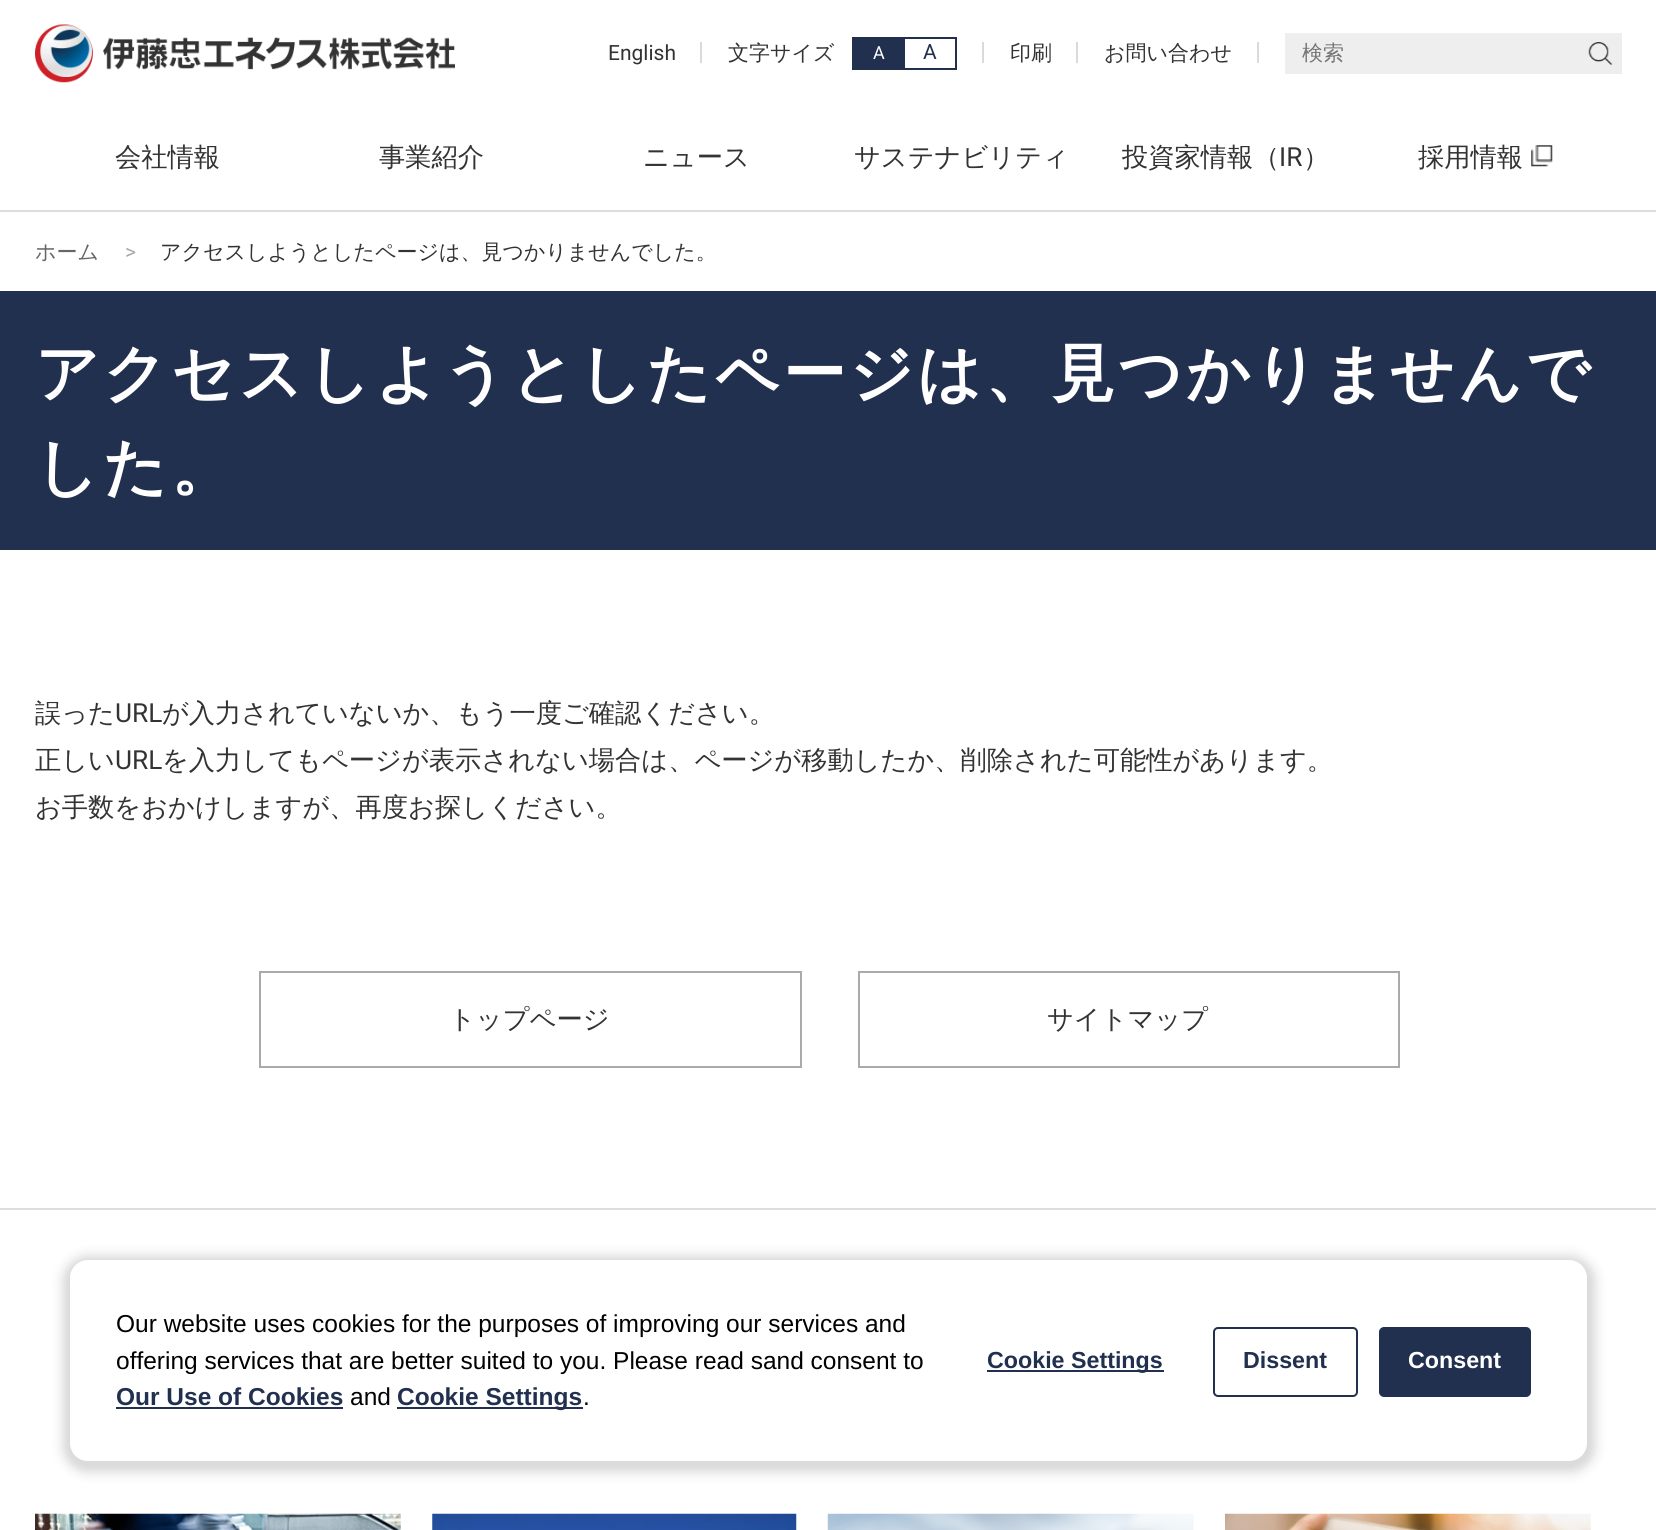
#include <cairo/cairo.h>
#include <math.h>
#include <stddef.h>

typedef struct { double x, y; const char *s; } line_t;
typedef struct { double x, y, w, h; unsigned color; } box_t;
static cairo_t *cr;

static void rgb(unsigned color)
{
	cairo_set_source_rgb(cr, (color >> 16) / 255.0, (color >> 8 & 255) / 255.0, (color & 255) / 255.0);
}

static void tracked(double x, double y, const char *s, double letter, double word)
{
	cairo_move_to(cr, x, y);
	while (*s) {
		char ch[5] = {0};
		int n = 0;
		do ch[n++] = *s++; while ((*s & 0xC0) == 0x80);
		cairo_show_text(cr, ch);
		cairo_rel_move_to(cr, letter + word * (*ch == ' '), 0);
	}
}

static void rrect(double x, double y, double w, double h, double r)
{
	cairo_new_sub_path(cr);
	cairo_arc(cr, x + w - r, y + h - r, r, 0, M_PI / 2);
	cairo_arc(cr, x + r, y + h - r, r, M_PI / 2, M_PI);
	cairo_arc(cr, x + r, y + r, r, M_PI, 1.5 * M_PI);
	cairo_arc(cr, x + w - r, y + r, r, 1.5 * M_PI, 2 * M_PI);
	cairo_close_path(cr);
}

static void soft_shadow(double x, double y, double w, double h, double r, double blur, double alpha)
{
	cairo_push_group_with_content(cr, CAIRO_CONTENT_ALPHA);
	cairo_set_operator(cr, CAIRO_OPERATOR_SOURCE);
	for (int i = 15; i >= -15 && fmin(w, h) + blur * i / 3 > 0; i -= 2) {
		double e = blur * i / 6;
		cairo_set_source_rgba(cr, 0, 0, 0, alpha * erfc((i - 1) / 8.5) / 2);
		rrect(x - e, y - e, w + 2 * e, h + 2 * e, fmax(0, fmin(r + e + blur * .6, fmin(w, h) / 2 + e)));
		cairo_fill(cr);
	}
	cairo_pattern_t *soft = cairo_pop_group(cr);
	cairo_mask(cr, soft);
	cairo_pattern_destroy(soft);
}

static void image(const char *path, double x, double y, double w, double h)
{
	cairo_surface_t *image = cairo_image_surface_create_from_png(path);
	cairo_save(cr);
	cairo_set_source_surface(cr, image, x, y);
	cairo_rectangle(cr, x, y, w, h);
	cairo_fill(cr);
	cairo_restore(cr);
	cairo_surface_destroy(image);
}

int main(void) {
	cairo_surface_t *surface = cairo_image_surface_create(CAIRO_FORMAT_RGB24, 1656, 1530);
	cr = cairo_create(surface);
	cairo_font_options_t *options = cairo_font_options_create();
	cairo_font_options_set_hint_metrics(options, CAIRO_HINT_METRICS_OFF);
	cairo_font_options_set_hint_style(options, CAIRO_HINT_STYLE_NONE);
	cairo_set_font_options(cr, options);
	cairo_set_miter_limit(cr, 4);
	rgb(0xffffff);
	cairo_paint(cr);
	rgb(0xdddddd);
	cairo_rectangle(cr, 0, 210, 1656, 2);
	cairo_fill(cr);
	image("img/1.png", 35, 24, 420, 59);
	rgb(0xdadada);
	cairo_rectangle(cr, 700, 42, 2, 21);
	cairo_fill(cr);
	cairo_rectangle(cr, 853, 38, 103, 31);
	rgb(0x22304f);
	cairo_stroke(cr);
	{
		static const box_t items[] = {
			{854, 39, 51, 29, 0x22304f},
			{982, 42, 2, 21, 0xdadada},
			{1076, 42, 2, 21, 0xdadada},
			{1257, 42, 2, 21, 0xdadada},
			{1285, 33, 337, 41, 0xeeeeee},
		};
		for (size_t i = 0; i < sizeof items / sizeof *items; i++) {
			rgb(items[i].color);
			cairo_rectangle(cr, items[i].x, items[i].y, items[i].w, items[i].h);
			cairo_fill(cr);
		}
	}
	image("img/2.png", 1588, 42, 25, 23);
	image("img/3.png", 1531, 145, 22, 22);
	rgb(0x22304f);
	cairo_rectangle(cr, 0, 291, 1656, 259);
	cairo_fill(cr);
	cairo_rectangle(cr, 260, 972, 541, 95);
	rgb(0xaaaaaa);
	cairo_stroke(cr);
	cairo_rectangle(cr, 859, 972, 540, 95);
	cairo_stroke(cr);
	rgb(0xdddddd);
	cairo_rectangle(cr, 0, 1208, 1656, 2);
	cairo_fill(cr);
	image("img/4.png", 35, 1513, 366, 17);
	image("img/5.png", 432, 1513, 365, 17);
	image("img/6.png", 827, 1513, 367, 17);
	image("img/7.png", 1225, 1513, 366, 17);
	rgb(0x000000);
	soft_shadow(65, 1258, 1528, 212, 23, 2.5, 0.05);
	soft_shadow(60, 1253, 1538, 222, 28, 5, 0.1);
	rgb(0xffffff);
	rrect(70, 1260, 1517, 201, 18);
	cairo_fill(cr);
	{
		static const box_t items[] = {
			{116, 1407, 227, 2, 0x22304f},
			{397, 1407, 186, 2, 0x22304f},
			{987, 1370, 177, 2, 0x22304f},
		};
		for (size_t i = 0; i < sizeof items / sizeof *items; i++) {
			rgb(items[i].color);
			cairo_rectangle(cr, items[i].x, items[i].y, items[i].w, items[i].h);
			cairo_fill(cr);
		}
	}
	rrect(1214, 1328, 143, 68, 4);
	cairo_stroke(cr);
	rrect(1380, 1328, 150, 68, 4);
	cairo_fill_preserve(cr);
	cairo_stroke(cr);
	cairo_select_font_face(cr, "Roboto", CAIRO_FONT_SLANT_NORMAL, CAIRO_FONT_WEIGHT_NORMAL);
	cairo_set_font_size(cr, 21);
	rgb(0x333333);
	cairo_move_to(cr, 608, 60);
	cairo_show_text(cr, "English");
	cairo_select_font_face(cr, "WenQuanYi Zen Hei Medium", CAIRO_FONT_SLANT_NORMAL, CAIRO_FONT_WEIGHT_NORMAL);
	cairo_move_to(cr, 728, 60);
	cairo_show_text(cr, "文字サイズ");
	cairo_select_font_face(cr, "Roboto", CAIRO_FONT_SLANT_NORMAL, CAIRO_FONT_WEIGHT_NORMAL);
	cairo_set_font_size(cr, 18);
	rgb(0xffffff);
	cairo_move_to(cr, 873, 59);
	cairo_show_text(cr, "A");
	cairo_set_font_size(cr, 21);
	rgb(0x22304f);
	cairo_move_to(cr, 923, 59);
	cairo_show_text(cr, "A");
	cairo_select_font_face(cr, "WenQuanYi Zen Hei Medium", CAIRO_FONT_SLANT_NORMAL, CAIRO_FONT_WEIGHT_NORMAL);
	rgb(0x333333);
	cairo_move_to(cr, 1010, 60);
	cairo_show_text(cr, "印刷");
	cairo_move_to(cr, 1104, 60);
	cairo_show_text(cr, "お問い合わせ");
	rgb(0x757575);
	cairo_move_to(cr, 1302, 60);
	cairo_show_text(cr, "検索");
	cairo_set_font_size(cr, 26.25);
	rgb(0x333333);
	{
		static const line_t items[] = {
			{115, 166, "会社情報"},
			{379, 166, "事業紹介"},
			{643, 166, "ニュース"},
			{854, 166, "サステナビリティ"},
			{1122, 166, "投資家情報（"},
		};
		for (size_t i = 0; i < sizeof items / sizeof *items; i++) {
			cairo_move_to(cr, items[i].x, items[i].y);
			cairo_show_text(cr, items[i].s);
		}
	}
	cairo_select_font_face(cr, "Roboto", CAIRO_FONT_SLANT_NORMAL, CAIRO_FONT_WEIGHT_NORMAL);
	cairo_move_to(cr, 1279, 166);
	cairo_show_text(cr, "IR");
	cairo_select_font_face(cr, "WenQuanYi Zen Hei Medium", CAIRO_FONT_SLANT_NORMAL, CAIRO_FONT_WEIGHT_NORMAL);
	cairo_move_to(cr, 1303, 166);
	cairo_show_text(cr, "）");
	cairo_move_to(cr, 1418, 166);
	cairo_show_text(cr, "採用情報");
	cairo_set_font_size(cr, 21);
	rgb(0x666666);
	cairo_move_to(cr, 35, 259);
	cairo_show_text(cr, "ホーム");
	cairo_select_font_face(cr, "Roboto", CAIRO_FONT_SLANT_NORMAL, CAIRO_FONT_WEIGHT_NORMAL);
	rgb(0xaaaaaa);
	cairo_move_to(cr, 125, 259);
	cairo_show_text(cr, ">");
	cairo_select_font_face(cr, "WenQuanYi Zen Hei Medium", CAIRO_FONT_SLANT_NORMAL, CAIRO_FONT_WEIGHT_NORMAL);
	rgb(0x333333);
	cairo_move_to(cr, 160, 259);
	cairo_show_text(cr, "アクセスしようとしたページは、見つかりませんでした。");
	cairo_select_font_face(cr, "WenQuanYi Zen Hei", CAIRO_FONT_SLANT_NORMAL, CAIRO_FONT_WEIGHT_BOLD);
	cairo_set_font_size(cr, 63);
	rgb(0xffffff);
	tracked(35, 395, "アクセスしようとしたページは、見つかりませんで", 3.5, 0);
	tracked(35, 489, "した。", 3.5, 0);
	cairo_select_font_face(cr, "WenQuanYi Zen Hei Medium", CAIRO_FONT_SLANT_NORMAL, CAIRO_FONT_WEIGHT_NORMAL);
	cairo_set_font_size(cr, 26.25);
	rgb(0x333333);
	cairo_move_to(cr, 35, 722);
	cairo_show_text(cr, "誤った");
	cairo_select_font_face(cr, "Roboto", CAIRO_FONT_SLANT_NORMAL, CAIRO_FONT_WEIGHT_NORMAL);
	cairo_move_to(cr, 115, 722);
	cairo_show_text(cr, "URL");
	cairo_select_font_face(cr, "WenQuanYi Zen Hei Medium", CAIRO_FONT_SLANT_NORMAL, CAIRO_FONT_WEIGHT_NORMAL);
	cairo_move_to(cr, 162, 722);
	cairo_show_text(cr, "が入力されていないか、もう一度ご確認ください。");
	cairo_move_to(cr, 35, 769);
	cairo_show_text(cr, "正しい");
	cairo_select_font_face(cr, "Roboto", CAIRO_FONT_SLANT_NORMAL, CAIRO_FONT_WEIGHT_NORMAL);
	cairo_move_to(cr, 115, 769);
	cairo_show_text(cr, "URL");
	cairo_select_font_face(cr, "WenQuanYi Zen Hei Medium", CAIRO_FONT_SLANT_NORMAL, CAIRO_FONT_WEIGHT_NORMAL);
	{
		static const line_t items[] = {
			{162, 769, "を入力してもページが表示されない場合は、ページが移動したか、削除された可能性があります。"},
			{35, 816, "お手数をおかけしますが、再度お探しください。"},
			{449, 1028, "トップページ"},
			{1047, 1028, "サイトマップ"},
		};
		for (size_t i = 0; i < sizeof items / sizeof *items; i++) {
			cairo_move_to(cr, items[i].x, items[i].y);
			cairo_show_text(cr, items[i].s);
		}
	}
	cairo_select_font_face(cr, "Liberation Sans", CAIRO_FONT_SLANT_NORMAL, CAIRO_FONT_WEIGHT_NORMAL);
	cairo_set_font_size(cr, 24.5);
	rgb(0x000000);
	cairo_move_to(cr, 116, 1332);
	cairo_show_text(cr, "Our website uses cookies for the purposes of improving our services and");
	cairo_move_to(cr, 116, 1369);
	cairo_show_text(cr, "offering services that are better suited to you. Please read sand consent to");
	cairo_select_font_face(cr, "Liberation Sans", CAIRO_FONT_SLANT_NORMAL, CAIRO_FONT_WEIGHT_BOLD);
	rgb(0x22304f);
	cairo_move_to(cr, 116, 1405);
	cairo_show_text(cr, "Our Use of Cookies");
	cairo_select_font_face(cr, "Liberation Sans", CAIRO_FONT_SLANT_NORMAL, CAIRO_FONT_WEIGHT_NORMAL);
	rgb(0x000000);
	cairo_move_to(cr, 350, 1405);
	cairo_show_text(cr, "and");
	cairo_select_font_face(cr, "Liberation Sans", CAIRO_FONT_SLANT_NORMAL, CAIRO_FONT_WEIGHT_BOLD);
	rgb(0x22304f);
	cairo_move_to(cr, 397, 1405);
	cairo_show_text(cr, "Cookie Settings");
	cairo_select_font_face(cr, "Liberation Sans", CAIRO_FONT_SLANT_NORMAL, CAIRO_FONT_WEIGHT_NORMAL);
	rgb(0x000000);
	cairo_move_to(cr, 583, 1405);
	cairo_show_text(cr, ".");
	cairo_select_font_face(cr, "Liberation Sans", CAIRO_FONT_SLANT_NORMAL, CAIRO_FONT_WEIGHT_BOLD);
	cairo_set_font_size(cr, 23.25);
	rgb(0x22304f);
	cairo_move_to(cr, 987, 1368);
	cairo_show_text(cr, "Cookie Settings");
	cairo_move_to(cr, 1243, 1368);
	cairo_show_text(cr, "Dissent");
	rgb(0xffffff);
	cairo_move_to(cr, 1408, 1368);
	cairo_show_text(cr, "Consent");
	cairo_surface_write_to_png(surface, "page.png");
	cairo_font_options_destroy(options);
	cairo_destroy(cr);
	cairo_surface_destroy(surface);
	return 0;
}
